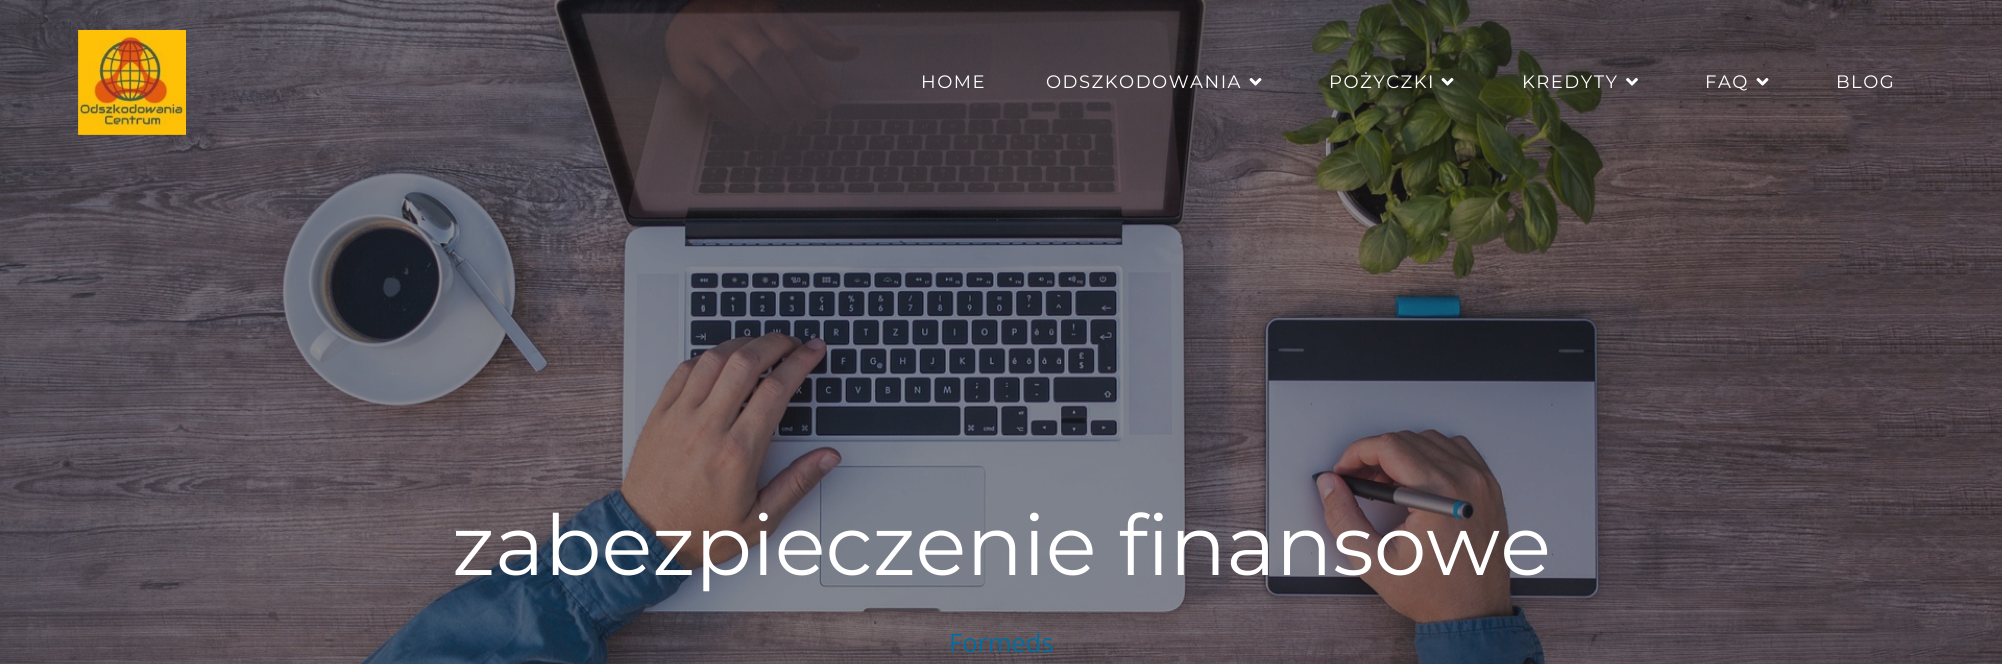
#include <cairo/cairo.h>
#include <math.h>
#include <stddef.h>

typedef struct { double x, y; const char *s; } line_t;
static cairo_t *cr;

static void rgb(unsigned color)
{
	cairo_set_source_rgb(cr, (color >> 16) / 255.0, (color >> 8 & 255) / 255.0, (color & 255) / 255.0);
}

static void tracked(double x, double y, const char *s, double letter, double word)
{
	cairo_move_to(cr, x, y);
	while (*s) {
		char ch[5] = {0};
		int n = 0;
		do ch[n++] = *s++; while ((*s & 0xC0) == 0x80);
		cairo_show_text(cr, ch);
		cairo_rel_move_to(cr, letter + word * (*ch == ' '), 0);
	}
}

static void image(const char *path, double x, double y, double w, double h)
{
	cairo_surface_t *image = cairo_image_surface_create_from_png(path);
	cairo_save(cr);
	cairo_set_source_surface(cr, image, x, y);
	cairo_rectangle(cr, x, y, w, h);
	cairo_fill(cr);
	cairo_restore(cr);
	cairo_surface_destroy(image);
}

int main(void) {
	cairo_surface_t *surface = cairo_image_surface_create(CAIRO_FORMAT_RGB24, 2002, 664);
	cr = cairo_create(surface);
	cairo_font_options_t *options = cairo_font_options_create();
	cairo_font_options_set_hint_metrics(options, CAIRO_HINT_METRICS_OFF);
	cairo_font_options_set_hint_style(options, CAIRO_HINT_STYLE_NONE);
	cairo_set_font_options(cr, options);
	cairo_set_miter_limit(cr, 4);
	rgb(0xffffff);
	cairo_paint(cr);
	image("img/6.png", 0, 0, 2002, 664);
	image("img/1.png", 78, 30, 108, 105);
	image("img/2.png", 1249, 77, 13, 9);
	image("img/3.png", 1441, 77, 13, 9);
	image("img/4.png", 1626, 77, 12, 9);
	image("img/5.png", 1756, 77, 13, 9);
	cairo_select_font_face(cr, "Montserrat", CAIRO_FONT_SLANT_NORMAL, CAIRO_FONT_WEIGHT_NORMAL);
	cairo_set_font_size(cr, 18);
	rgb(0xffffff);
	{
		static const line_t items[] = {
			{921, 88, "HOME"},
			{1046, 88, "ODSZKODOWANIA"},
			{1329, 88, "POŻYCZKI"},
			{1522, 88, "KREDYTY"},
			{1705, 88, "FAQ"},
			{1836, 88, "BLOG"},
		};
		for (size_t i = 0; i < sizeof items / sizeof *items; i++) {
			tracked(items[i].x, items[i].y, items[i].s, 1.5, 0);
		}
	}
	cairo_set_font_size(cr, 84);
	cairo_move_to(cr, 452, 575);
	cairo_show_text(cr, "zabezpieczenie finansowe");
	cairo_select_font_face(cr, "Open Sans", CAIRO_FONT_SLANT_NORMAL, CAIRO_FONT_WEIGHT_NORMAL);
	cairo_set_font_size(cr, 25.5);
	rgb(0x026e9f);
	cairo_move_to(cr, 949, 652);
	cairo_show_text(cr, "Formeds");
	cairo_surface_write_to_png(surface, "page.png");
	cairo_font_options_destroy(options);
	cairo_destroy(cr);
	cairo_surface_destroy(surface);
	return 0;
}
